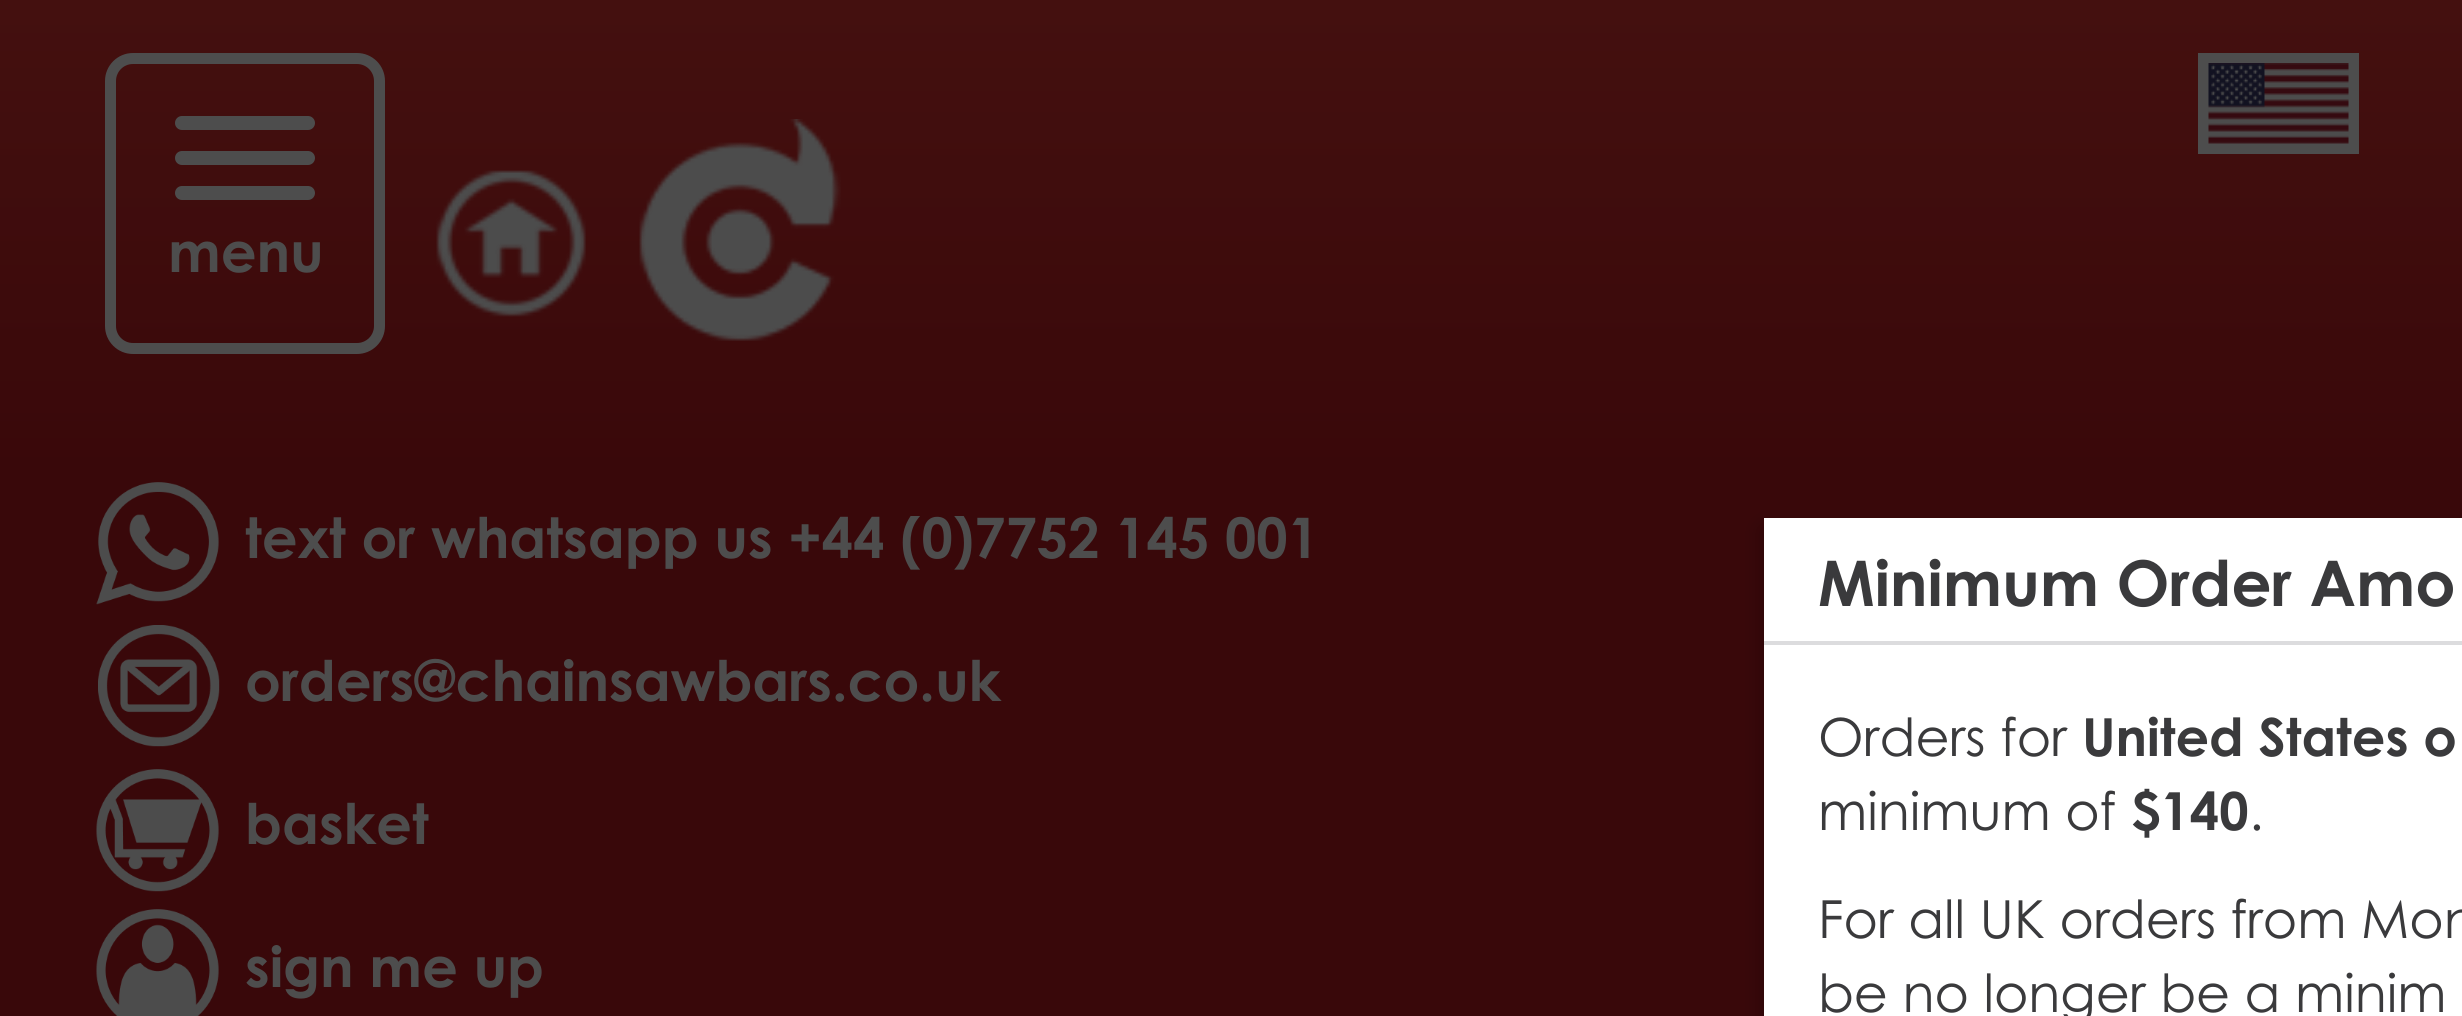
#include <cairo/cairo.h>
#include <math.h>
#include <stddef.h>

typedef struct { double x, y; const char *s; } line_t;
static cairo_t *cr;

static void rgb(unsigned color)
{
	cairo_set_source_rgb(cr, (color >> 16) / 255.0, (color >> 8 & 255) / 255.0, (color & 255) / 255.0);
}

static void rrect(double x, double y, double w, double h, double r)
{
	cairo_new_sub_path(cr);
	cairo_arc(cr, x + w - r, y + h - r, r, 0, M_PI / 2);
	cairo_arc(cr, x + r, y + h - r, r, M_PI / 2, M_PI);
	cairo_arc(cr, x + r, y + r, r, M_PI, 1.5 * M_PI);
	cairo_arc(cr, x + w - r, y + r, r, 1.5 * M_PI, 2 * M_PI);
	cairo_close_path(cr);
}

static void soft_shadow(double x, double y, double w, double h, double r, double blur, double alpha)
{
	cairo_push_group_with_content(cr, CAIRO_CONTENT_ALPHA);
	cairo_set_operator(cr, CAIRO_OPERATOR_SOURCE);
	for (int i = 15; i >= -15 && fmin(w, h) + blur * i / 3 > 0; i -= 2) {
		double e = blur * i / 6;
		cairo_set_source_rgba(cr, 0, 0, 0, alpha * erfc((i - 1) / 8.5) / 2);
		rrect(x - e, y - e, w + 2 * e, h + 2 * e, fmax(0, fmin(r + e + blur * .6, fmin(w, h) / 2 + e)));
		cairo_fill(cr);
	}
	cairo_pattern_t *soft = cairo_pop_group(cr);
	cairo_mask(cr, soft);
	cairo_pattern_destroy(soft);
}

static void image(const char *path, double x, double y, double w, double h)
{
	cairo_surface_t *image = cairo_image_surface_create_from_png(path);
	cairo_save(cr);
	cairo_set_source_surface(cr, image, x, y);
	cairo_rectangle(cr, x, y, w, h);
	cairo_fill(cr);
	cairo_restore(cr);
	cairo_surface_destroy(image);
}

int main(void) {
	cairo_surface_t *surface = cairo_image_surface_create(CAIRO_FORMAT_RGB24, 2462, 1016);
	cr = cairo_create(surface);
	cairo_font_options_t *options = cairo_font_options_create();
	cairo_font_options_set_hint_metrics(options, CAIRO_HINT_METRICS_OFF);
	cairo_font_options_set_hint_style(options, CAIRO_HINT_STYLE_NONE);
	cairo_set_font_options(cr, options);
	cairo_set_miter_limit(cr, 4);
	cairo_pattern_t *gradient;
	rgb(0xffffff);
	cairo_paint(cr);
	gradient = cairo_pattern_create_linear(1232, 0, 1232, 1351);
	cairo_pattern_add_color_stop_rgba(gradient, 0, 0.267, 0.063, 0.059, 1);
	cairo_pattern_add_color_stop_rgba(gradient, 0.35, 0.224, 0.031, 0.039, 1);
	cairo_pattern_add_color_stop_rgba(gradient, 1, 0.224, 0.031, 0.039, 1);
	cairo_set_source(cr, gradient);
	cairo_pattern_destroy(gradient);
	cairo_rectangle(cr, 0, 0, 2462, 1016);
	cairo_fill(cr);
	rgb(0x4d4d4d);
	cairo_rectangle(cr, 2198, 53, 161, 101);
	cairo_fill(cr);
	image("img/1.png", 2208, 63, 141, 81);
	rrect(110.5, 58.5, 269, 290, 22.5);
	cairo_set_line_width(cr, 11);
	cairo_stroke(cr);
	rrect(175, 116, 140, 14, 7);
	cairo_fill(cr);
	rrect(175, 151, 140, 14, 7);
	cairo_fill(cr);
	rrect(175, 186, 140, 14, 7);
	cairo_fill(cr);
	image("img/2.png", 436, 119, 405, 222);
	image("img/3.png", 96, 482, 123, 123);
	image("img/4.png", 98, 625, 122, 122);
	image("img/5.png", 96, 769, 123, 123);
	image("img/6.png", 96, 909, 123, 107);
	rgb(0x000000);
	soft_shadow(1764, 529, 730, 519, 0, 10.5, 0.3);
	rgb(0xffffff);
	cairo_rectangle(cr, 1764, 518, 698, 498);
	cairo_fill(cr);
	rgb(0xdcdcde);
	cairo_rectangle(cr, 1764, 641, 698, 4);
	cairo_fill(cr);
	cairo_select_font_face(cr, "Century Gothic", CAIRO_FONT_SLANT_NORMAL, CAIRO_FONT_WEIGHT_BOLD);
	cairo_set_font_size(cr, 56);
	rgb(0x4d4d4d);
	{
		static const line_t items[] = {
			{168, 272, "menu"},
			{245, 558, "text or whatsapp us +44 (0)7752 145 001"},
			{245, 701, "orders@chainsawbars.co.uk"},
			{245, 844, "basket"},
			{245, 987, "sign me up"},
		};
		for (size_t i = 0; i < sizeof items / sizeof *items; i++) {
			cairo_move_to(cr, items[i].x, items[i].y);
			cairo_show_text(cr, items[i].s);
		}
	}
	cairo_set_font_size(cr, 63);
	rgb(0x3a3a3c);
	cairo_move_to(cr, 1818, 606);
	cairo_show_text(cr, "Minimum Order Amo");
	cairo_select_font_face(cr, "Century Gothic", CAIRO_FONT_SLANT_NORMAL, CAIRO_FONT_WEIGHT_NORMAL);
	cairo_set_font_size(cr, 52.5);
	cairo_move_to(cr, 1818, 756);
	cairo_show_text(cr, "Orders for");
	cairo_select_font_face(cr, "Century Gothic", CAIRO_FONT_SLANT_NORMAL, CAIRO_FONT_WEIGHT_BOLD);
	cairo_move_to(cr, 2082, 756);
	cairo_show_text(cr, "United States o");
	cairo_select_font_face(cr, "Century Gothic", CAIRO_FONT_SLANT_NORMAL, CAIRO_FONT_WEIGHT_NORMAL);
	cairo_move_to(cr, 1818, 830);
	cairo_show_text(cr, "minimum of");
	cairo_select_font_face(cr, "Century Gothic", CAIRO_FONT_SLANT_NORMAL, CAIRO_FONT_WEIGHT_BOLD);
	cairo_move_to(cr, 2131, 830);
	cairo_show_text(cr, "$140");
	cairo_select_font_face(cr, "Century Gothic", CAIRO_FONT_SLANT_NORMAL, CAIRO_FONT_WEIGHT_NORMAL);
	{
		static const line_t items[] = {
			{2249, 830, "."},
			{1818, 938, "For all UK orders from Mon"},
			{1818, 1012, "be no longer be a minim"},
		};
		for (size_t i = 0; i < sizeof items / sizeof *items; i++) {
			cairo_move_to(cr, items[i].x, items[i].y);
			cairo_show_text(cr, items[i].s);
		}
	}
	cairo_surface_write_to_png(surface, "page.png");
	cairo_font_options_destroy(options);
	cairo_destroy(cr);
	cairo_surface_destroy(surface);
	return 0;
}
